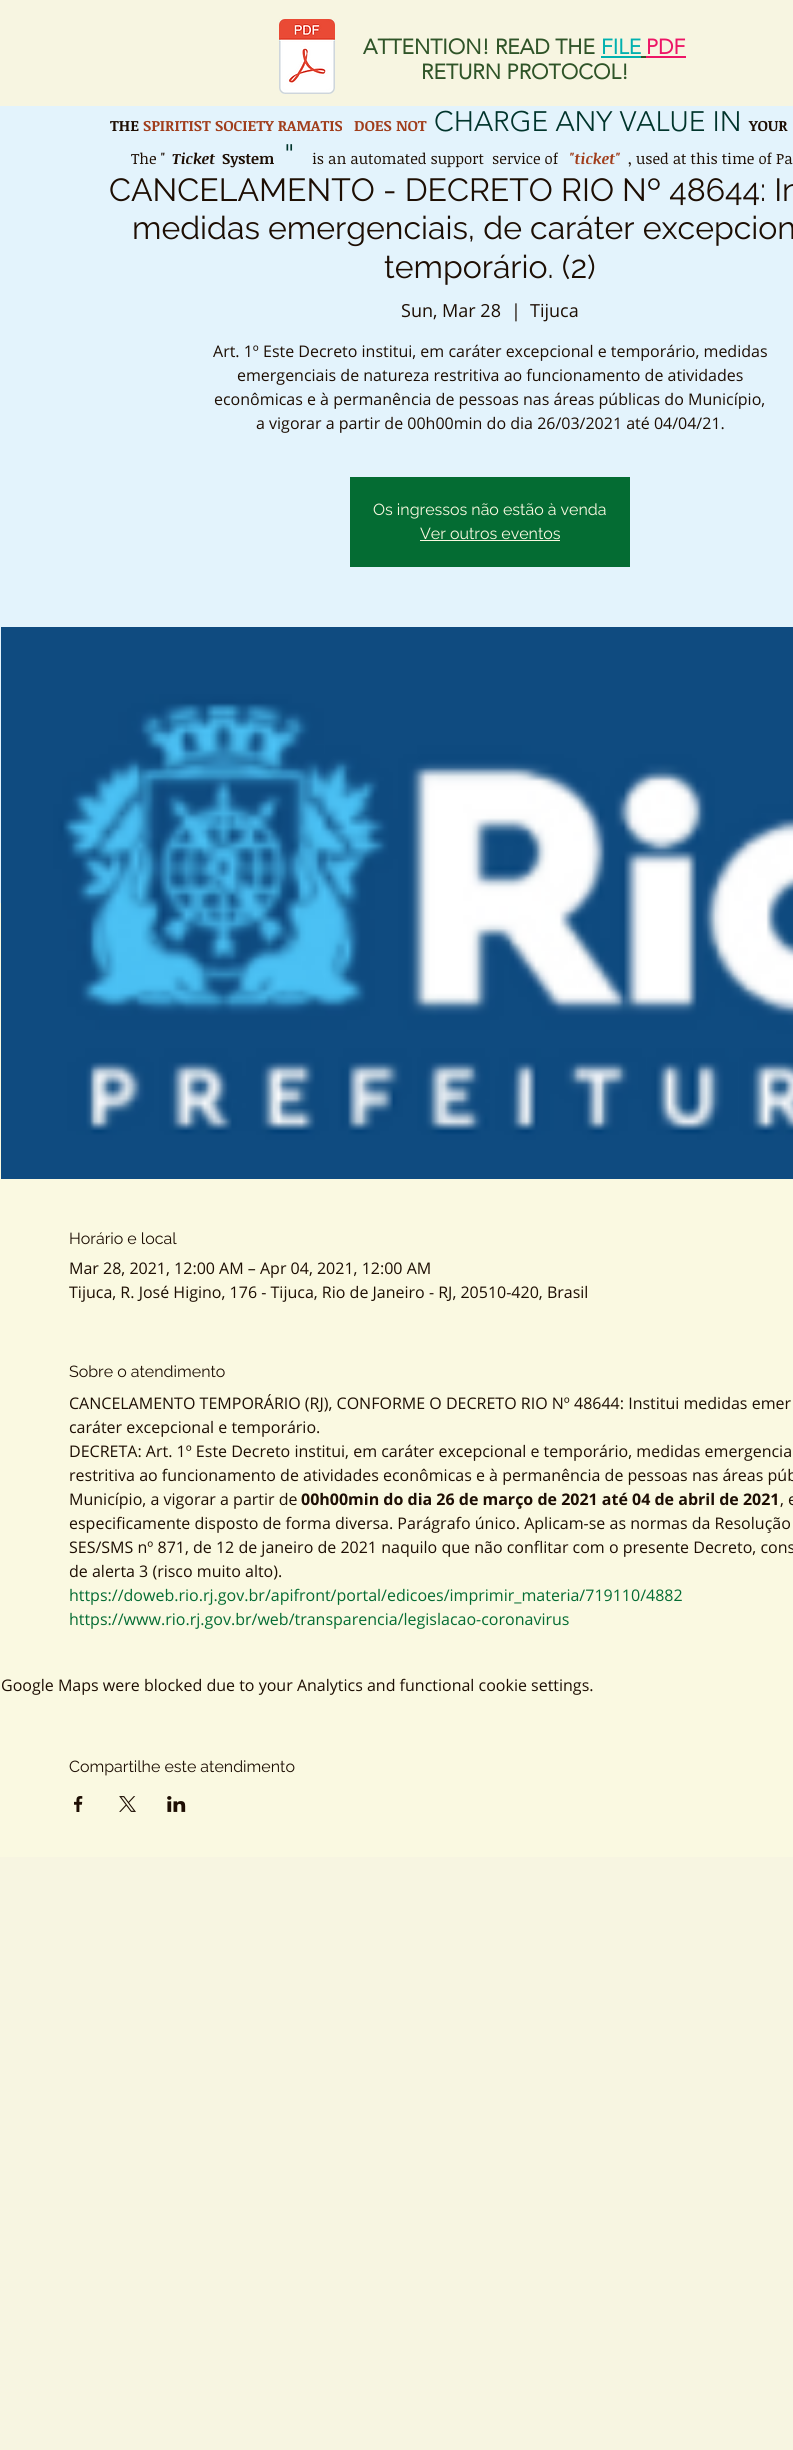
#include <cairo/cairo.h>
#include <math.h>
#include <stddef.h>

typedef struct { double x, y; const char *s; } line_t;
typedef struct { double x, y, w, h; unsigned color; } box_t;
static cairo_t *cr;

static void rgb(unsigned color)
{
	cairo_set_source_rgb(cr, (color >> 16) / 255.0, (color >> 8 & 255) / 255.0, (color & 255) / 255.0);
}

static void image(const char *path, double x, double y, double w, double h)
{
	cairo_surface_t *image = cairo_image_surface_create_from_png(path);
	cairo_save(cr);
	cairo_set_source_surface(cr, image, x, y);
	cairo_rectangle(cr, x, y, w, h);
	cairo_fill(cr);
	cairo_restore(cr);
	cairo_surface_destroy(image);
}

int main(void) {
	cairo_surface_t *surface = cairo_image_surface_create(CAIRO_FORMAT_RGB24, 793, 2450);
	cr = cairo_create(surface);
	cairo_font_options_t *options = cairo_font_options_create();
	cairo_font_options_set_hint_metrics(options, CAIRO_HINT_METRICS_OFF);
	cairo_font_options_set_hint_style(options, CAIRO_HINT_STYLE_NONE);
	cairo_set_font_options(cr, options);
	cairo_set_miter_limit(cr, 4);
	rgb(0xf7f5e1);
	cairo_paint(cr);
	image("img/1.png", 279, 19, 56, 75);
	{
		static const box_t items[] = {
			{601, 56, 40, 2, 0x01b1af},
			{641, 56, 5, 2, 0x2f5428},
			{646, 56, 40, 2, 0xed1566},
			{0, 106, 793, 797, 0xe3f3fc},
			{350, 477, 280, 90, 0x046c33},
			{420, 540, 140, 1, 0xfaf9e1},
			{0, 903, 793, 954, 0xfaf9e1},
		};
		for (size_t i = 0; i < sizeof items / sizeof *items; i++) {
			rgb(items[i].color);
			cairo_rectangle(cr, items[i].x, items[i].y, items[i].w, items[i].h);
			cairo_fill(cr);
		}
	}
	image("img/2.png", 1, 627, 792, 552);
	image("img/3.png", 74, 1796, 9, 16);
	image("img/4.png", 119, 1796, 17, 16);
	image("img/5.png", 167, 1796, 19, 16);
	cairo_select_font_face(cr, "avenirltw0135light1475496", CAIRO_FONT_SLANT_NORMAL, CAIRO_FONT_WEIGHT_BOLD);
	cairo_set_font_size(cr, 21);
	rgb(0x2f5428);
	cairo_move_to(cr, 363, 54);
	cairo_show_text(cr, "ATTENTION! READ THE");
	rgb(0x01b1af);
	cairo_move_to(cr, 601, 54);
	cairo_show_text(cr, "FILE");
	rgb(0xed1566);
	cairo_move_to(cr, 646, 54);
	cairo_show_text(cr, "PDF");
	rgb(0x2f5428);
	cairo_move_to(cr, 421, 79);
	cairo_show_text(cr, "RETURN PROTOCOL!");
	cairo_select_font_face(cr, "Noticia Text", CAIRO_FONT_SLANT_NORMAL, CAIRO_FONT_WEIGHT_BOLD);
	cairo_set_font_size(cr, 15);
	rgb(0x1d0e03);
	cairo_move_to(cr, 110, 131);
	cairo_show_text(cr, "THE");
	rgb(0xa03d1b);
	cairo_move_to(cr, 143, 131);
	cairo_show_text(cr, "SPIRITIST SOCIETY RAMATIS");
	cairo_move_to(cr, 354, 131);
	cairo_show_text(cr, "DOES NOT");
	cairo_select_font_face(cr, "avenirltw0135light1475496 Light", CAIRO_FONT_SLANT_NORMAL, CAIRO_FONT_WEIGHT_NORMAL);
	cairo_set_font_size(cr, 28);
	rgb(0x00342b);
	cairo_move_to(cr, 434, 131);
	cairo_show_text(cr, "CHARGE ANY VALUE IN");
	cairo_select_font_face(cr, "Noticia Text", CAIRO_FONT_SLANT_NORMAL, CAIRO_FONT_WEIGHT_BOLD);
	cairo_set_font_size(cr, 15);
	rgb(0x1d0e03);
	cairo_move_to(cr, 749, 131);
	cairo_show_text(cr, "YOUR");
	cairo_select_font_face(cr, "avenirltw0135light1475496 Light", CAIRO_FONT_SLANT_NORMAL, CAIRO_FONT_WEIGHT_NORMAL);
	cairo_set_font_size(cr, 28);
	rgb(0x00342b);
	cairo_move_to(cr, 282, 164);
	cairo_show_text(cr, "\"");
	cairo_select_font_face(cr, "Noticia Text", CAIRO_FONT_SLANT_NORMAL, CAIRO_FONT_WEIGHT_NORMAL);
	cairo_set_font_size(cr, 15);
	rgb(0x1d0e03);
	cairo_move_to(cr, 131, 164);
	cairo_show_text(cr, "The \"");
	cairo_select_font_face(cr, "Noticia Text", CAIRO_FONT_SLANT_ITALIC, CAIRO_FONT_WEIGHT_BOLD);
	cairo_move_to(cr, 172, 164);
	cairo_show_text(cr, "Ticket");
	cairo_select_font_face(cr, "Noticia Text", CAIRO_FONT_SLANT_NORMAL, CAIRO_FONT_WEIGHT_BOLD);
	cairo_move_to(cr, 222, 164);
	cairo_show_text(cr, "System");
	cairo_select_font_face(cr, "Noticia Text", CAIRO_FONT_SLANT_NORMAL, CAIRO_FONT_WEIGHT_NORMAL);
	cairo_move_to(cr, 312, 164);
	cairo_show_text(cr, "is an automated support  service of");
	cairo_select_font_face(cr, "Noticia Text", CAIRO_FONT_SLANT_ITALIC, CAIRO_FONT_WEIGHT_BOLD);
	rgb(0xa03d1b);
	cairo_move_to(cr, 569, 164);
	cairo_show_text(cr, "\"ticket\"");
	cairo_select_font_face(cr, "Noticia Text", CAIRO_FONT_SLANT_NORMAL, CAIRO_FONT_WEIGHT_NORMAL);
	rgb(0x1d0e03);
	cairo_move_to(cr, 628, 164);
	cairo_show_text(cr, ", used at this time of Pa");
	cairo_select_font_face(cr, "Raleway", CAIRO_FONT_SLANT_NORMAL, CAIRO_FONT_WEIGHT_NORMAL);
	cairo_set_font_size(cr, 32);
	{
		static const line_t items[] = {
			{109, 201, "CANCELAMENTO - DECRETO RIO Nº 48644: In"},
			{132, 239, "medidas emergenciais, de caráter excepcion"},
			{384, 278, "temporário. (2)"},
		};
		for (size_t i = 0; i < sizeof items / sizeof *items; i++) {
			cairo_move_to(cr, items[i].x, items[i].y);
			cairo_show_text(cr, items[i].s);
		}
	}
	cairo_select_font_face(cr, "Open Sans", CAIRO_FONT_SLANT_NORMAL, CAIRO_FONT_WEIGHT_NORMAL);
	cairo_set_font_size(cr, 18);
	{
		static const line_t items[] = {
			{401, 317, "Sun, Mar 28"},
			{511, 317, "|"},
			{530, 317, "Tijuca"},
		};
		for (size_t i = 0; i < sizeof items / sizeof *items; i++) {
			cairo_move_to(cr, items[i].x, items[i].y);
			cairo_show_text(cr, items[i].s);
		}
	}
	cairo_set_font_size(cr, 16);
	{
		static const line_t items[] = {
			{213, 357, "Art. 1º Este Decreto institui, em caráter excepcional e temporário, medidas"},
			{237, 381, "emergenciais de natureza restritiva ao funcionamento de atividades"},
			{214, 405, "econômicas e à permanência de pessoas nas áreas públicas do Município,"},
			{256, 429, "a vigorar a partir de 00h00min do dia 26/03/2021 até 04/04/21."},
		};
		for (size_t i = 0; i < sizeof items / sizeof *items; i++) {
			cairo_move_to(cr, items[i].x, items[i].y);
			cairo_show_text(cr, items[i].s);
		}
	}
	cairo_select_font_face(cr, "Raleway", CAIRO_FONT_SLANT_NORMAL, CAIRO_FONT_WEIGHT_NORMAL);
	rgb(0xfaf9e1);
	cairo_move_to(cr, 373, 515);
	cairo_show_text(cr, "Os ingressos não estão à venda");
	cairo_move_to(cr, 420, 539);
	cairo_show_text(cr, "Ver outros eventos");
	rgb(0x1d0e03);
	cairo_move_to(cr, 69, 1244);
	cairo_show_text(cr, "Horário e local");
	cairo_select_font_face(cr, "Open Sans", CAIRO_FONT_SLANT_NORMAL, CAIRO_FONT_WEIGHT_NORMAL);
	cairo_move_to(cr, 69, 1274);
	cairo_show_text(cr, "Mar 28, 2021, 12:00 AM – Apr 04, 2021, 12:00 AM");
	cairo_move_to(cr, 69, 1298);
	cairo_show_text(cr, "Tijuca, R. José Higino, 176 - Tijuca, Rio de Janeiro - RJ, 20510-420, Brasil");
	cairo_select_font_face(cr, "Raleway", CAIRO_FONT_SLANT_NORMAL, CAIRO_FONT_WEIGHT_NORMAL);
	cairo_move_to(cr, 69, 1377);
	cairo_show_text(cr, "Sobre o atendimento");
	cairo_select_font_face(cr, "Open Sans", CAIRO_FONT_SLANT_NORMAL, CAIRO_FONT_WEIGHT_NORMAL);
	{
		static const line_t items[] = {
			{69, 1409, "CANCELAMENTO TEMPORÁRIO (RJ), CONFORME O DECRETO RIO Nº 48644: Institui medidas emer"},
			{69, 1433, "caráter excepcional e temporário."},
			{69, 1457, "DECRETA: Art. 1º Este Decreto institui, em caráter excepcional e temporário, medidas emergencia"},
			{69, 1481, "restritiva ao funcionamento de atividades econômicas e à permanência de pessoas nas áreas púb"},
			{69, 1505, "Município, a vigorar a partir de"},
		};
		for (size_t i = 0; i < sizeof items / sizeof *items; i++) {
			cairo_move_to(cr, items[i].x, items[i].y);
			cairo_show_text(cr, items[i].s);
		}
	}
	cairo_select_font_face(cr, "Open Sans", CAIRO_FONT_SLANT_NORMAL, CAIRO_FONT_WEIGHT_BOLD);
	cairo_move_to(cr, 301, 1505);
	cairo_show_text(cr, "00h00min do dia 26 de março de 2021 até 04 de abril de 2021");
	cairo_select_font_face(cr, "Open Sans", CAIRO_FONT_SLANT_NORMAL, CAIRO_FONT_WEIGHT_NORMAL);
	{
		static const line_t items[] = {
			{780, 1505, ", e"},
			{69, 1529, "especificamente disposto de forma diversa. Parágrafo único. Aplicam-se as normas da Resolução"},
			{69, 1553, "SES/SMS nº 871, de 12 de janeiro de 2021 naquilo que não conflitar com o presente Decreto, cons"},
			{69, 1577, "de alerta 3 (risco muito alto)."},
		};
		for (size_t i = 0; i < sizeof items / sizeof *items; i++) {
			cairo_move_to(cr, items[i].x, items[i].y);
			cairo_show_text(cr, items[i].s);
		}
	}
	rgb(0x046c33);
	cairo_move_to(cr, 69, 1601);
	cairo_show_text(cr, "https://doweb.rio.rj.gov.br/apifront/portal/edicoes/imprimir_materia/719110/4882");
	cairo_move_to(cr, 69, 1625);
	cairo_show_text(cr, "https://www.rio.rj.gov.br/web/transparencia/legislacao-coronavirus");
	rgb(0x1d0e03);
	cairo_move_to(cr, 1, 1691);
	cairo_show_text(cr, "Google Maps were blocked due to your Analytics and functional cookie settings.");
	cairo_select_font_face(cr, "Raleway", CAIRO_FONT_SLANT_NORMAL, CAIRO_FONT_WEIGHT_NORMAL);
	cairo_move_to(cr, 69, 1772);
	cairo_show_text(cr, "Compartilhe este atendimento");
	cairo_surface_write_to_png(surface, "page.png");
	cairo_font_options_destroy(options);
	cairo_destroy(cr);
	cairo_surface_destroy(surface);
	return 0;
}
